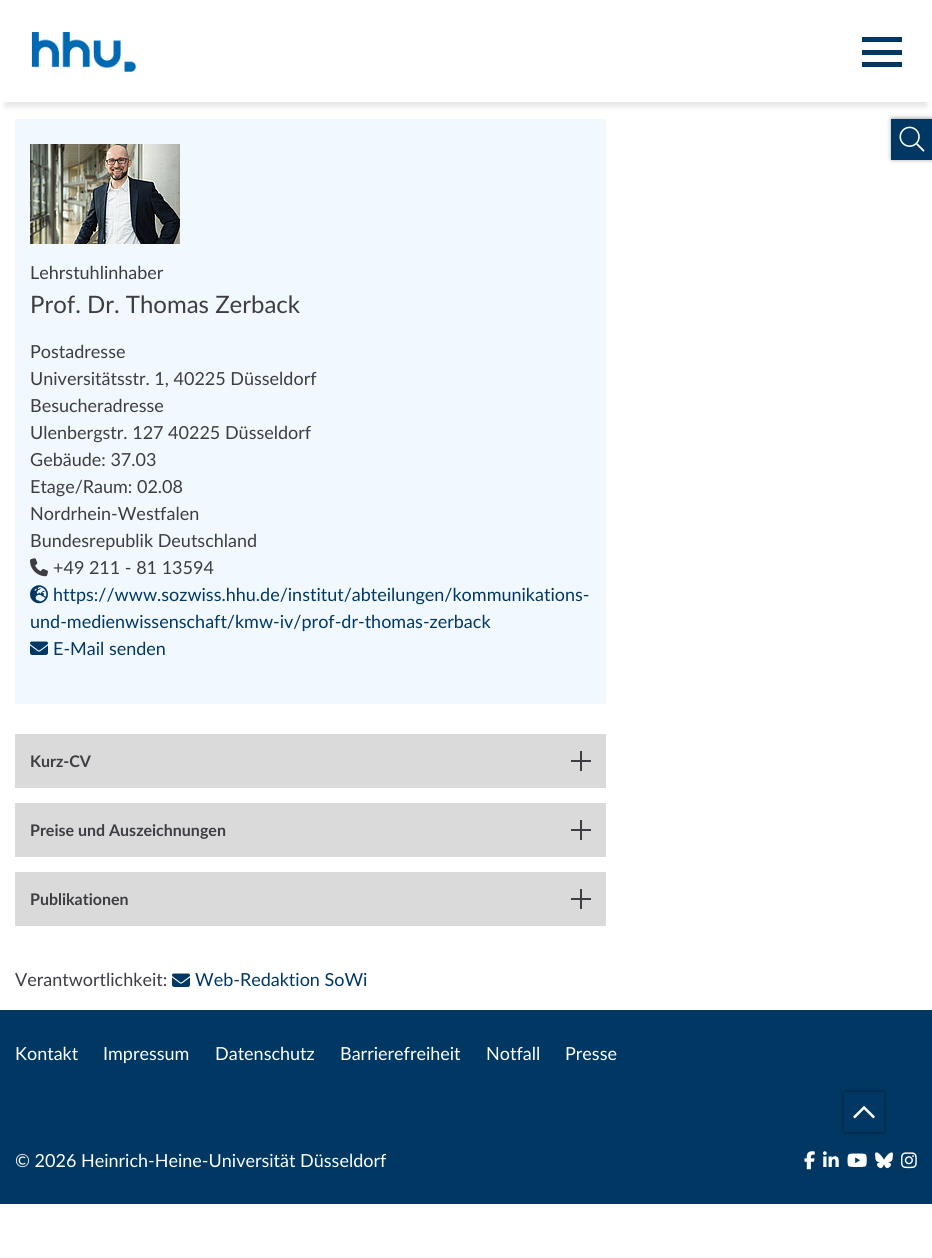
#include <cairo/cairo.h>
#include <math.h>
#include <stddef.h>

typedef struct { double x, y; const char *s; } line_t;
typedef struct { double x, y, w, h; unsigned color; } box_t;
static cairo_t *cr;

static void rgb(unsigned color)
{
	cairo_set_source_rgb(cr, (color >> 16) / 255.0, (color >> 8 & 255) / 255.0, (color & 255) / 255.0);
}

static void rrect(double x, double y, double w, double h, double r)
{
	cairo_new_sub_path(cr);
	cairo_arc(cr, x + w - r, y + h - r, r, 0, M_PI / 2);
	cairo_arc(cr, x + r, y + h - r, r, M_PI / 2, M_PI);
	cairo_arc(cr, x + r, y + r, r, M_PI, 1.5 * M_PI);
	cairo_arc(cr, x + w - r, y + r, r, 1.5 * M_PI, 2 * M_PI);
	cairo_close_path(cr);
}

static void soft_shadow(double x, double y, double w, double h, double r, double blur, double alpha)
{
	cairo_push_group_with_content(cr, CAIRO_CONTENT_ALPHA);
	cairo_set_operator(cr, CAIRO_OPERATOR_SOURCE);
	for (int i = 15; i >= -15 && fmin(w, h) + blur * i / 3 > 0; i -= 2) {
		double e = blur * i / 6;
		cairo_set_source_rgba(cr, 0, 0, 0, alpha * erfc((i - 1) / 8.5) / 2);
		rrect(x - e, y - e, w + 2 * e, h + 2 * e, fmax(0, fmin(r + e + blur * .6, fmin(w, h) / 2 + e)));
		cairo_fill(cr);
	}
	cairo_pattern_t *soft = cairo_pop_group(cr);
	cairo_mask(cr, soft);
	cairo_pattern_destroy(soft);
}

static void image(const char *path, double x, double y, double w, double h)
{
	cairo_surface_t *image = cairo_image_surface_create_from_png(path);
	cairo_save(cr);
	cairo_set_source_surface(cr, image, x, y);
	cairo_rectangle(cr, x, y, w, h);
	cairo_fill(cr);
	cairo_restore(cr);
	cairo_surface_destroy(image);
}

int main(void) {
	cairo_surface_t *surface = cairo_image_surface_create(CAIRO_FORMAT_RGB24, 932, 1258);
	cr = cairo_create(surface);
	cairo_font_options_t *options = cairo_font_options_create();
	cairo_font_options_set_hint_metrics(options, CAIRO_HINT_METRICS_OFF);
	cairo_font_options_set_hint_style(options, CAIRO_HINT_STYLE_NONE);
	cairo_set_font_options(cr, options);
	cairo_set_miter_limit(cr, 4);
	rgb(0xffffff);
	cairo_paint(cr);
	rgb(0x000000);
	soft_shadow(5, 15, 922, 92, 0, 2.5, 0.1);
	rgb(0xffffff);
	cairo_rectangle(cr, 2, 12, 928, 90);
	cairo_fill(cr);
	image("img/1.png", 31, 32, 106, 40);
	{
		static const box_t items[] = {
			{862, 37, 40, 5, 0x003863},
			{862, 50, 40, 5, 0x003863},
			{862, 62, 40, 5, 0x003863},
		};
		for (size_t i = 0; i < sizeof items / sizeof *items; i++) {
			rgb(items[i].color);
			cairo_rectangle(cr, items[i].x, items[i].y, items[i].w, items[i].h);
			cairo_fill(cr);
		}
	}
	rgb(0x000000);
	soft_shadow(892, 119, 40, 40, 0, 2.5, 0.5);
	rgb(0x003863);
	cairo_rectangle(cr, 891, 119, 41, 41);
	cairo_fill(cr);
	image("img/2.png", 899, 126, 26, 26);
	rgb(0xf1f8fe);
	cairo_rectangle(cr, 15, 119, 591, 585);
	cairo_fill(cr);
	image("img/3.png", 30, 144, 150, 100);
	image("img/4.png", 30, 558, 18, 19);
	image("img/5.png", 30, 585, 18, 19);
	image("img/6.png", 30, 641, 18, 14);
	{
		static const box_t items[] = {
			{15, 734, 591, 54, 0xdadada},
			{571, 760, 20, 2, 0x3d3d43},
			{580, 751, 2, 20, 0x3d3d43},
			{15, 803, 591, 54, 0xdadada},
			{571, 829, 20, 2, 0x3d3d43},
			{580, 820, 2, 20, 0x3d3d43},
			{15, 872, 591, 54, 0xdadada},
			{571, 898, 20, 2, 0x3d3d43},
			{580, 889, 2, 20, 0x3d3d43},
		};
		for (size_t i = 0; i < sizeof items / sizeof *items; i++) {
			rgb(items[i].color);
			cairo_rectangle(cr, items[i].x, items[i].y, items[i].w, items[i].h);
			cairo_fill(cr);
		}
	}
	image("img/7.png", 172, 973, 18, 14);
	rgb(0x003863);
	cairo_rectangle(cr, 0, 1010, 932, 194);
	cairo_fill(cr);
	image("img/8.png", 804, 1151, 11, 19);
	image("img/9.png", 823, 1151, 16, 16);
	image("img/10.png", 847, 1153, 20, 14);
	image("img/11.png", 875, 1152, 18, 17);
	image("img/12.png", 901, 1152, 16, 17);
	cairo_save(cr);
	cairo_set_fill_rule(cr, CAIRO_FILL_RULE_EVEN_ODD);
	cairo_new_path(cr);
	cairo_move_to(cr, 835, 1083);
	cairo_line_to(cr, 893, 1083);
	cairo_line_to(cr, 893, 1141);
	cairo_line_to(cr, 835, 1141);
	cairo_close_path(cr);
	cairo_move_to(cr, 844, 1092);
	cairo_line_to(cr, 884, 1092);
	cairo_line_to(cr, 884, 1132);
	cairo_line_to(cr, 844, 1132);
	cairo_close_path(cr);
	cairo_clip(cr);
	rgb(0x000000);
	soft_shadow(844, 1092, 40, 40, 0, 2.5, 0.5);
	cairo_restore(cr);
	image("img/13.png", 853, 1106, 22, 13);
	cairo_select_font_face(cr, "Lato", CAIRO_FONT_SLANT_NORMAL, CAIRO_FONT_WEIGHT_NORMAL);
	cairo_set_font_size(cr, 18);
	rgb(0x3d3d43);
	cairo_move_to(cr, 30, 279);
	cairo_show_text(cr, "Lehrstuhlinhaber");
	cairo_set_font_size(cr, 24);
	cairo_move_to(cr, 30, 313);
	cairo_show_text(cr, "Prof. Dr. Thomas Zerback");
	cairo_set_font_size(cr, 18);
	{
		static const line_t items[] = {
			{30, 358, "Postadresse"},
			{30, 385, "Universitätsstr. 1, 40225 Düsseldorf"},
			{30, 412, "Besucheradresse"},
			{30, 439, "Ulenbergstr. 127 40225 Düsseldorf"},
			{30, 466, "Gebäude: 37.03"},
			{30, 493, "Etage/Raum: 02.08"},
			{30, 520, "Nordrhein-Westfalen"},
			{30, 547, "Bundesrepublik Deutschland"},
			{53, 574, "+49 211 - 81 13594"},
		};
		for (size_t i = 0; i < sizeof items / sizeof *items; i++) {
			cairo_move_to(cr, items[i].x, items[i].y);
			cairo_show_text(cr, items[i].s);
		}
	}
	rgb(0x003863);
	{
		static const line_t items[] = {
			{53, 601, "https://www.sozwiss.hhu.de/institut/abteilungen/kommunikations-"},
			{30, 628, "und-medienwissenschaft/kmw-iv/prof-dr-thomas-zerback"},
			{53, 655, "E-Mail senden"},
		};
		for (size_t i = 0; i < sizeof items / sizeof *items; i++) {
			cairo_move_to(cr, items[i].x, items[i].y);
			cairo_show_text(cr, items[i].s);
		}
	}
	cairo_select_font_face(cr, "Lato", CAIRO_FONT_SLANT_NORMAL, CAIRO_FONT_WEIGHT_BOLD);
	cairo_set_font_size(cr, 16);
	rgb(0x3d3d43);
	{
		static const line_t items[] = {
			{30, 767, "Kurz-CV"},
			{30, 836, "Preise und Auszeichnungen"},
			{30, 905, "Publikationen"},
		};
		for (size_t i = 0; i < sizeof items / sizeof *items; i++) {
			cairo_move_to(cr, items[i].x, items[i].y);
			cairo_show_text(cr, items[i].s);
		}
	}
	cairo_select_font_face(cr, "Lato", CAIRO_FONT_SLANT_NORMAL, CAIRO_FONT_WEIGHT_NORMAL);
	cairo_set_font_size(cr, 18);
	cairo_move_to(cr, 15, 986);
	cairo_show_text(cr, "Verantwortlichkeit:");
	rgb(0x003863);
	cairo_move_to(cr, 195, 986);
	cairo_show_text(cr, "Web-Redaktion SoWi");
	rgb(0xffffff);
	{
		static const line_t items[] = {
			{15, 1060, "Kontakt"},
			{103, 1060, "Impressum"},
			{215, 1060, "Datenschutz"},
			{340, 1060, "Barrierefreiheit"},
			{486, 1060, "Notfall"},
			{565, 1060, "Presse"},
			{15, 1167, "© 2026 Heinrich-Heine-Universität Düsseldorf"},
		};
		for (size_t i = 0; i < sizeof items / sizeof *items; i++) {
			cairo_move_to(cr, items[i].x, items[i].y);
			cairo_show_text(cr, items[i].s);
		}
	}
	cairo_surface_write_to_png(surface, "page.png");
	cairo_font_options_destroy(options);
	cairo_destroy(cr);
	cairo_surface_destroy(surface);
	return 0;
}
